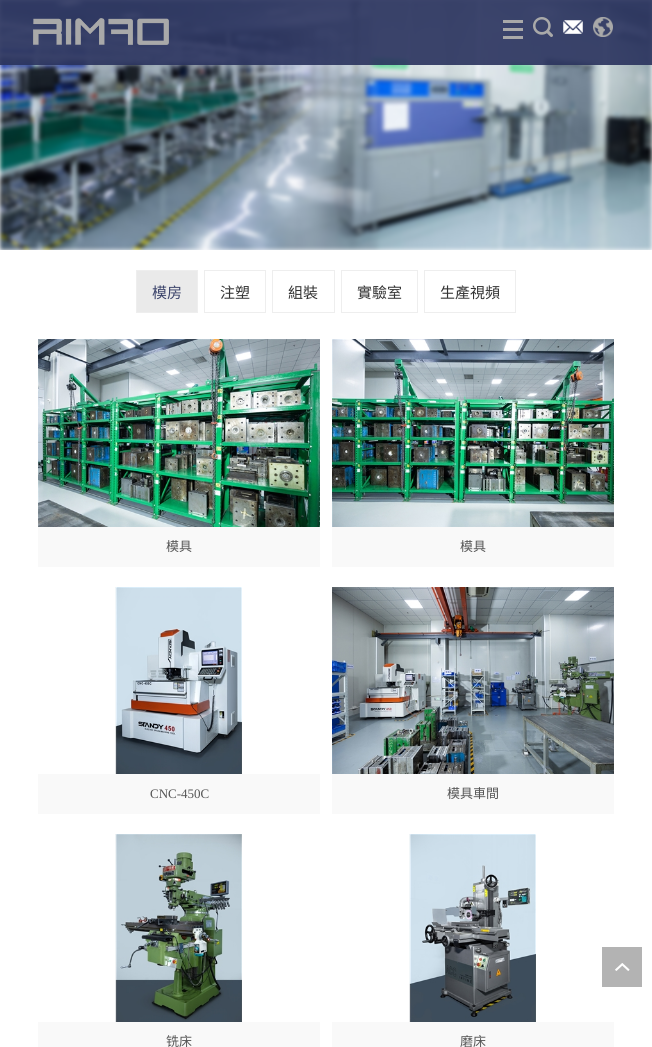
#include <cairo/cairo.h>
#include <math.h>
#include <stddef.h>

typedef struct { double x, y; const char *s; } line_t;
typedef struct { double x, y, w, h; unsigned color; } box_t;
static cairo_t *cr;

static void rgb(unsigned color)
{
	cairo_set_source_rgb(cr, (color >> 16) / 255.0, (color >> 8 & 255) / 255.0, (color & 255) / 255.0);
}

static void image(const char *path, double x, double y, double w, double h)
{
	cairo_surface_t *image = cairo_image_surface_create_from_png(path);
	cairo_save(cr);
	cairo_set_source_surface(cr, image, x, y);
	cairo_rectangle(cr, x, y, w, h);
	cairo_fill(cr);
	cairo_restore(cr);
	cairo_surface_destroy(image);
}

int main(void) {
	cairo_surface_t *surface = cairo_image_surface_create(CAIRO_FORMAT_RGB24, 652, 1047);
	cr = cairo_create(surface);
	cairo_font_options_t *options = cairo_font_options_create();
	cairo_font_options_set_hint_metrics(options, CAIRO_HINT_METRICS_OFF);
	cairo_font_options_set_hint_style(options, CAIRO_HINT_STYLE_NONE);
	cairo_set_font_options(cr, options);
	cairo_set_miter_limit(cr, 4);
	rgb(0xffffff);
	cairo_paint(cr);
	image("img/1.png", 0, 0, 652, 250);
	cairo_set_source_rgba(cr, 0.161, 0.196, 0.365, 0.9);
	cairo_rectangle(cr, 0, 0, 652, 65);
	cairo_fill(cr);
	image("img/2.png", 33, 18, 136, 27);
	{
		static const box_t items[] = {
			{503, 20, 20, 3, 0xa9a9a9},
			{503, 28, 20, 3, 0xa9a9a9},
			{503, 36, 20, 3, 0xa9a9a9},
		};
		for (size_t i = 0; i < sizeof items / sizeof *items; i++) {
			rgb(items[i].color);
			cairo_rectangle(cr, items[i].x, items[i].y, items[i].w, items[i].h);
			cairo_fill(cr);
		}
	}
	image("img/3.png", 533, 17, 20, 20);
	image("img/4.png", 563, 20, 20, 14);
	image("img/5.png", 593, 17, 20, 20);
	rgb(0xeaeaea);
	cairo_rectangle(cr, 136.5, 270.5, 61, 42);
	cairo_fill_preserve(cr);
	rgb(0xeeeeee);
	cairo_set_line_width(cr, 1);
	cairo_stroke(cr);
	cairo_rectangle(cr, 204.5, 270.5, 61, 42);
	cairo_stroke(cr);
	cairo_rectangle(cr, 272.5, 270.5, 62, 42);
	cairo_stroke(cr);
	cairo_rectangle(cr, 341.5, 270.5, 76, 42);
	cairo_stroke(cr);
	cairo_rectangle(cr, 424.5, 270.5, 91, 42);
	cairo_stroke(cr);
	image("img/6.png", 38, 339, 282, 188);
	rgb(0xf9f9f9);
	cairo_rectangle(cr, 38, 527, 282, 40);
	cairo_fill(cr);
	image("img/7.png", 332, 339, 282, 188);
	cairo_rectangle(cr, 332, 527, 282, 40);
	cairo_fill(cr);
	image("img/8.png", 115, 587, 127, 187);
	cairo_rectangle(cr, 38, 774, 282, 40);
	cairo_fill(cr);
	image("img/9.png", 332, 587, 282, 187);
	cairo_rectangle(cr, 332, 774, 282, 40);
	cairo_fill(cr);
	image("img/10.png", 115, 834, 127, 188);
	cairo_rectangle(cr, 38, 1022, 282, 25);
	cairo_fill(cr);
	image("img/11.png", 409, 834, 127, 188);
	cairo_rectangle(cr, 332, 1022, 282, 25);
	cairo_fill(cr);
	rgb(0xb3b3b3);
	cairo_rectangle(cr, 602, 947, 40, 40);
	cairo_fill(cr);
	image("img/12.png", 615, 963, 15, 8);
	cairo_select_font_face(cr, "Noto Sans CJK SC", CAIRO_FONT_SLANT_NORMAL, CAIRO_FONT_WEIGHT_NORMAL);
	cairo_set_font_size(cr, 15);
	rgb(0x3c446b);
	cairo_move_to(cr, 152, 298);
	cairo_show_text(cr, "模房");
	rgb(0x333333);
	{
		static const line_t items[] = {
			{220, 298, "注塑"},
			{288, 298, "組裝"},
			{357, 298, "實驗室"},
			{440, 298, "生產視頻"},
		};
		for (size_t i = 0; i < sizeof items / sizeof *items; i++) {
			cairo_move_to(cr, items[i].x, items[i].y);
			cairo_show_text(cr, items[i].s);
		}
	}
	cairo_set_font_size(cr, 13);
	rgb(0x555555);
	cairo_move_to(cr, 166, 551);
	cairo_show_text(cr, "模具");
	cairo_move_to(cr, 460, 551);
	cairo_show_text(cr, "模具");
	cairo_select_font_face(cr, "Liberation Serif", CAIRO_FONT_SLANT_NORMAL, CAIRO_FONT_WEIGHT_NORMAL);
	cairo_move_to(cr, 150, 798);
	cairo_show_text(cr, "CNC-450C");
	cairo_select_font_face(cr, "Noto Sans CJK SC", CAIRO_FONT_SLANT_NORMAL, CAIRO_FONT_WEIGHT_NORMAL);
	{
		static const line_t items[] = {
			{447, 798, "模具車間"},
			{166, 1046, "铣床"},
			{460, 1046, "磨床"},
		};
		for (size_t i = 0; i < sizeof items / sizeof *items; i++) {
			cairo_move_to(cr, items[i].x, items[i].y);
			cairo_show_text(cr, items[i].s);
		}
	}
	cairo_surface_write_to_png(surface, "page.png");
	cairo_font_options_destroy(options);
	cairo_destroy(cr);
	cairo_surface_destroy(surface);
	return 0;
}
